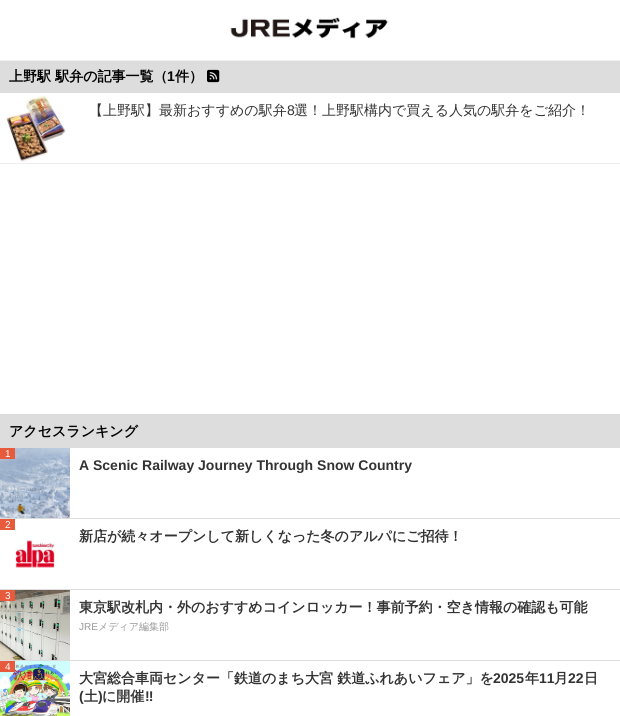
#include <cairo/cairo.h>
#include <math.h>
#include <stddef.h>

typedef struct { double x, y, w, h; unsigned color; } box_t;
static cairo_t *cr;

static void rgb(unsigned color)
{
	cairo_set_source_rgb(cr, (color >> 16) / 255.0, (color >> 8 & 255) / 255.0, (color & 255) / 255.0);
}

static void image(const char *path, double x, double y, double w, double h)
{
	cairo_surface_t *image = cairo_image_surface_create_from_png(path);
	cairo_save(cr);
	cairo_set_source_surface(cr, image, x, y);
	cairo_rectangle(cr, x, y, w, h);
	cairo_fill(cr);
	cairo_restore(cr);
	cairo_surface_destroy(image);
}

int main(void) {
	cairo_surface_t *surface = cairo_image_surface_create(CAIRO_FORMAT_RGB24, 620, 716);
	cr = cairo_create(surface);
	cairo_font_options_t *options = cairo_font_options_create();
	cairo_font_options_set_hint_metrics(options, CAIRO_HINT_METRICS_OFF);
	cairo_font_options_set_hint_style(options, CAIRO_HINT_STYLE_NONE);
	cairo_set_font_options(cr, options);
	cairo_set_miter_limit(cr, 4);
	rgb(0xffffff);
	cairo_paint(cr);
	rgb(0xeeeeee);
	cairo_rectangle(cr, 0, 60, 620, 1);
	cairo_fill(cr);
	image("img/1.png", 230, 17, 158, 22);
	rgb(0xdddddd);
	cairo_rectangle(cr, 0, 61, 620, 32);
	cairo_fill(cr);
	image("img/2.png", 207, 69, 13, 14);
	rgb(0xeeeeee);
	cairo_rectangle(cr, 0, 163, 620, 1);
	cairo_fill(cr);
	image("img/3.png", 6, 95, 60, 67);
	rgb(0xdddddd);
	cairo_rectangle(cr, 0, 414, 620, 34);
	cairo_fill(cr);
	cairo_rectangle(cr, 0, 518, 620, 1);
	cairo_fill(cr);
	image("img/4.png", 0, 448, 70, 70);
	{
		static const box_t items[] = {
			{0, 448, 15, 11, 0xe85a3c},
			{0, 589, 620, 1, 0xdddddd},
			{0, 519, 15, 11, 0xe85a3c},
		};
		for (size_t i = 0; i < sizeof items / sizeof *items; i++) {
			rgb(items[i].color);
			cairo_rectangle(cr, items[i].x, items[i].y, items[i].w, items[i].h);
			cairo_fill(cr);
		}
	}
	image("img/5.png", 15, 540, 40, 28);
	rgb(0xdddddd);
	cairo_rectangle(cr, 0, 660, 620, 1);
	cairo_fill(cr);
	image("img/6.png", 0, 590, 70, 70);
	rgb(0xe85a3c);
	cairo_rectangle(cr, 0, 590, 15, 11);
	cairo_fill(cr);
	image("img/7.png", 0, 661, 70, 55);
	cairo_rectangle(cr, 0, 661, 15, 11);
	cairo_fill(cr);
	cairo_select_font_face(cr, "WenQuanYi Zen Hei", CAIRO_FONT_SLANT_NORMAL, CAIRO_FONT_WEIGHT_BOLD);
	cairo_set_font_size(cr, 14);
	rgb(0x000000);
	cairo_move_to(cr, 9, 81);
	cairo_show_text(cr, "上野駅 駅弁の記事一覧（");
	cairo_select_font_face(cr, "Liberation Sans", CAIRO_FONT_SLANT_NORMAL, CAIRO_FONT_WEIGHT_BOLD);
	cairo_move_to(cr, 167, 81);
	cairo_show_text(cr, "1");
	cairo_select_font_face(cr, "WenQuanYi Zen Hei", CAIRO_FONT_SLANT_NORMAL, CAIRO_FONT_WEIGHT_BOLD);
	cairo_move_to(cr, 175, 81);
	cairo_show_text(cr, "件）");
	cairo_select_font_face(cr, "WenQuanYi Zen Hei Medium", CAIRO_FONT_SLANT_NORMAL, CAIRO_FONT_WEIGHT_NORMAL);
	rgb(0x333333);
	cairo_move_to(cr, 89, 115);
	cairo_show_text(cr, "【上野駅】最新おすすめの駅弁");
	cairo_select_font_face(cr, "Liberation Sans", CAIRO_FONT_SLANT_NORMAL, CAIRO_FONT_WEIGHT_NORMAL);
	cairo_move_to(cr, 287, 115);
	cairo_show_text(cr, "8");
	cairo_select_font_face(cr, "WenQuanYi Zen Hei Medium", CAIRO_FONT_SLANT_NORMAL, CAIRO_FONT_WEIGHT_NORMAL);
	cairo_move_to(cr, 294, 115);
	cairo_show_text(cr, "選！上野駅構内で買える人気の駅弁をご紹介！");
	cairo_select_font_face(cr, "WenQuanYi Zen Hei", CAIRO_FONT_SLANT_NORMAL, CAIRO_FONT_WEIGHT_BOLD);
	rgb(0x000000);
	cairo_move_to(cr, 9, 436);
	cairo_show_text(cr, "アクセスランキング");
	cairo_select_font_face(cr, "Liberation Sans", CAIRO_FONT_SLANT_NORMAL, CAIRO_FONT_WEIGHT_NORMAL);
	cairo_set_font_size(cr, 10);
	rgb(0xffffff);
	cairo_move_to(cr, 5, 457);
	cairo_show_text(cr, "1");
	cairo_select_font_face(cr, "Liberation Sans", CAIRO_FONT_SLANT_NORMAL, CAIRO_FONT_WEIGHT_BOLD);
	cairo_set_font_size(cr, 14);
	rgb(0x333333);
	cairo_move_to(cr, 79, 470);
	cairo_show_text(cr, "A Scenic Railway Journey Through Snow Country");
	cairo_select_font_face(cr, "Liberation Sans", CAIRO_FONT_SLANT_NORMAL, CAIRO_FONT_WEIGHT_NORMAL);
	cairo_set_font_size(cr, 10);
	rgb(0xffffff);
	cairo_move_to(cr, 5, 528);
	cairo_show_text(cr, "2");
	cairo_select_font_face(cr, "WenQuanYi Zen Hei", CAIRO_FONT_SLANT_NORMAL, CAIRO_FONT_WEIGHT_BOLD);
	cairo_set_font_size(cr, 14);
	rgb(0x333333);
	cairo_move_to(cr, 79, 541);
	cairo_show_text(cr, "新店が続々オープンして新しくなった冬のアルパにご招待！");
	cairo_select_font_face(cr, "Liberation Sans", CAIRO_FONT_SLANT_NORMAL, CAIRO_FONT_WEIGHT_NORMAL);
	cairo_set_font_size(cr, 10);
	rgb(0xffffff);
	cairo_move_to(cr, 5, 599);
	cairo_show_text(cr, "3");
	cairo_select_font_face(cr, "WenQuanYi Zen Hei", CAIRO_FONT_SLANT_NORMAL, CAIRO_FONT_WEIGHT_BOLD);
	cairo_set_font_size(cr, 14);
	rgb(0x333333);
	cairo_move_to(cr, 79, 612);
	cairo_show_text(cr, "東京駅改札内・外のおすすめコインロッカー！事前予約・空き情報の確認も可能");
	cairo_select_font_face(cr, "Liberation Sans", CAIRO_FONT_SLANT_NORMAL, CAIRO_FONT_WEIGHT_NORMAL);
	cairo_set_font_size(cr, 10);
	rgb(0x999999);
	cairo_move_to(cr, 79, 630);
	cairo_show_text(cr, "JRE");
	cairo_select_font_face(cr, "WenQuanYi Zen Hei Medium", CAIRO_FONT_SLANT_NORMAL, CAIRO_FONT_WEIGHT_NORMAL);
	cairo_move_to(cr, 98, 630);
	cairo_show_text(cr, "メディア編集部");
	cairo_select_font_face(cr, "Liberation Sans", CAIRO_FONT_SLANT_NORMAL, CAIRO_FONT_WEIGHT_NORMAL);
	rgb(0xffffff);
	cairo_move_to(cr, 5, 670);
	cairo_show_text(cr, "4");
	cairo_select_font_face(cr, "WenQuanYi Zen Hei", CAIRO_FONT_SLANT_NORMAL, CAIRO_FONT_WEIGHT_BOLD);
	cairo_set_font_size(cr, 14);
	rgb(0x333333);
	cairo_move_to(cr, 79, 683);
	cairo_show_text(cr, "大宮総合車両センター「鉄道のまち大宮 鉄道ふれあいフェア」を");
	cairo_select_font_face(cr, "Liberation Sans", CAIRO_FONT_SLANT_NORMAL, CAIRO_FONT_WEIGHT_BOLD);
	cairo_move_to(cr, 493, 683);
	cairo_show_text(cr, "2025");
	cairo_select_font_face(cr, "WenQuanYi Zen Hei", CAIRO_FONT_SLANT_NORMAL, CAIRO_FONT_WEIGHT_BOLD);
	cairo_move_to(cr, 525, 683);
	cairo_show_text(cr, "年");
	cairo_select_font_face(cr, "Liberation Sans", CAIRO_FONT_SLANT_NORMAL, CAIRO_FONT_WEIGHT_BOLD);
	cairo_move_to(cr, 539, 683);
	cairo_show_text(cr, "11");
	cairo_select_font_face(cr, "WenQuanYi Zen Hei", CAIRO_FONT_SLANT_NORMAL, CAIRO_FONT_WEIGHT_BOLD);
	cairo_move_to(cr, 554, 683);
	cairo_show_text(cr, "月");
	cairo_select_font_face(cr, "Liberation Sans", CAIRO_FONT_SLANT_NORMAL, CAIRO_FONT_WEIGHT_BOLD);
	cairo_move_to(cr, 568, 683);
	cairo_show_text(cr, "22");
	cairo_select_font_face(cr, "WenQuanYi Zen Hei", CAIRO_FONT_SLANT_NORMAL, CAIRO_FONT_WEIGHT_BOLD);
	cairo_move_to(cr, 584, 683);
	cairo_show_text(cr, "日");
	cairo_select_font_face(cr, "Liberation Sans", CAIRO_FONT_SLANT_NORMAL, CAIRO_FONT_WEIGHT_BOLD);
	cairo_move_to(cr, 79, 701);
	cairo_show_text(cr, "(");
	cairo_select_font_face(cr, "WenQuanYi Zen Hei", CAIRO_FONT_SLANT_NORMAL, CAIRO_FONT_WEIGHT_BOLD);
	cairo_move_to(cr, 84, 701);
	cairo_show_text(cr, "土");
	cairo_select_font_face(cr, "Liberation Sans", CAIRO_FONT_SLANT_NORMAL, CAIRO_FONT_WEIGHT_BOLD);
	cairo_move_to(cr, 98, 701);
	cairo_show_text(cr, ")");
	cairo_select_font_face(cr, "WenQuanYi Zen Hei", CAIRO_FONT_SLANT_NORMAL, CAIRO_FONT_WEIGHT_BOLD);
	cairo_move_to(cr, 102, 701);
	cairo_show_text(cr, "に開催");
	cairo_select_font_face(cr, "Liberation Sans", CAIRO_FONT_SLANT_NORMAL, CAIRO_FONT_WEIGHT_BOLD);
	cairo_move_to(cr, 145, 701);
	cairo_show_text(cr, "‼");
	cairo_surface_write_to_png(surface, "page.png");
	cairo_font_options_destroy(options);
	cairo_destroy(cr);
	cairo_surface_destroy(surface);
	return 0;
}
